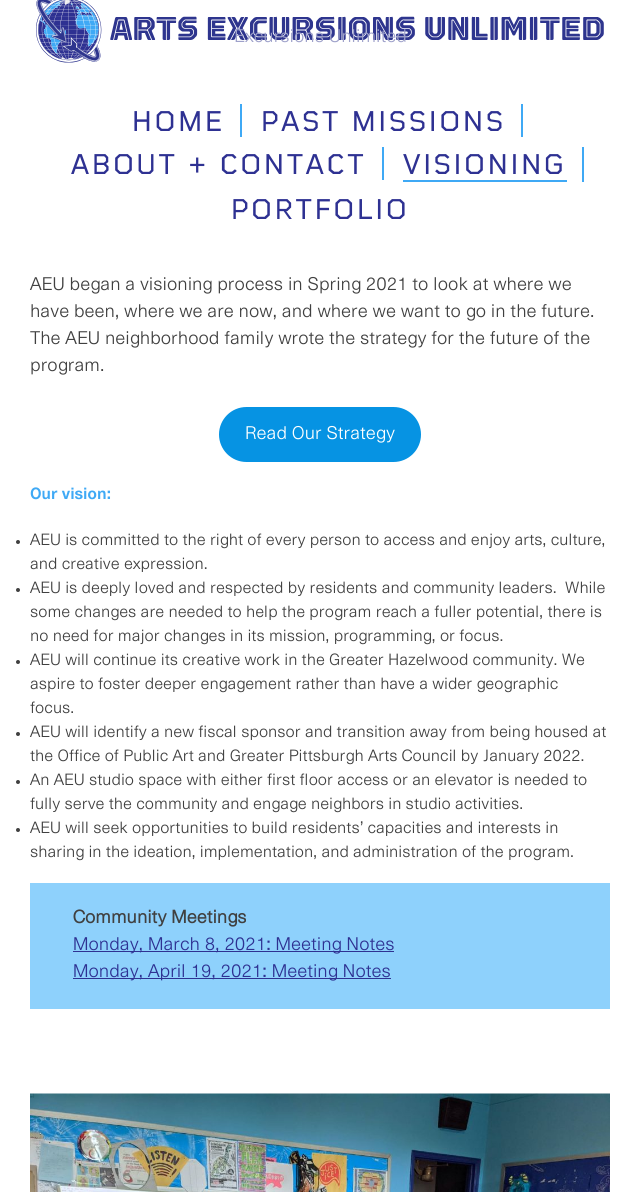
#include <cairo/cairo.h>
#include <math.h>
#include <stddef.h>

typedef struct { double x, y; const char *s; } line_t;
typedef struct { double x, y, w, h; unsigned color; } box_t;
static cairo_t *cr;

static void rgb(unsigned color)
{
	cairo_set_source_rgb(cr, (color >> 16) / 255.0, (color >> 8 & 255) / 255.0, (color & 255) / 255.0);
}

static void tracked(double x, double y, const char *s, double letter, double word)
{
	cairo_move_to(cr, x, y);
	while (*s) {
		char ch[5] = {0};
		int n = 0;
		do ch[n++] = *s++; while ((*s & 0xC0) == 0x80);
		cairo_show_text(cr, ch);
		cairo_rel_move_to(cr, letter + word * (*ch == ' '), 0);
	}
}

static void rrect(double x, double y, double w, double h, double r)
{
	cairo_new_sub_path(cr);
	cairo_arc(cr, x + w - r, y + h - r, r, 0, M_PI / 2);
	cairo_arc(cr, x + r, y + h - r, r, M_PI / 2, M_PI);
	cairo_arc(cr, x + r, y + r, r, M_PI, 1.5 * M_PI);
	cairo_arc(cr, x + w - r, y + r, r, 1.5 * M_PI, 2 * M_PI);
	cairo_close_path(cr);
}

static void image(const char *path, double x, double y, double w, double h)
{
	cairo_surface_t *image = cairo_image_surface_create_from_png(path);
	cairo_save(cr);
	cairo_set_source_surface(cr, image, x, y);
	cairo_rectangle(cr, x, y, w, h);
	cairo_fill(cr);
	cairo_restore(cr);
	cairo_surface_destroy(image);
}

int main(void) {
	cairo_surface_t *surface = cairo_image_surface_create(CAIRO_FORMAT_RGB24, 640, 1192);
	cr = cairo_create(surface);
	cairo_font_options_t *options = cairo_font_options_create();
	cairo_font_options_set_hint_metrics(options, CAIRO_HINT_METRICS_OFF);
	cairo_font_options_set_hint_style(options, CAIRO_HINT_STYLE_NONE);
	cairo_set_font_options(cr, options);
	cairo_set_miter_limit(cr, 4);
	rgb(0xffffff);
	cairo_paint(cr);
	image("img/1.png", 36, 0, 568, 63);
	{
		static const box_t items[] = {
			{240, 104, 2, 33, 0x3fa9f5},
			{521, 104, 2, 33, 0x3fa9f5},
			{382, 147, 2, 33, 0x3fa9f5},
			{582, 147, 2, 35, 0x3fa9f5},
			{403, 180, 164, 2, 0x3fa9f5},
		};
		for (size_t i = 0; i < sizeof items / sizeof *items; i++) {
			rgb(items[i].color);
			cairo_rectangle(cr, items[i].x, items[i].y, items[i].w, items[i].h);
			cairo_fill(cr);
		}
	}
	rgb(0x0693e3);
	rrect(219, 407, 202, 55, 27.5);
	cairo_fill(cr);
	rgb(0x404040);
	cairo_arc(cr, 18, 542, 2, 0, 2 * M_PI);
	cairo_fill(cr);
	cairo_arc(cr, 18, 590, 2, 0, 2 * M_PI);
	cairo_fill(cr);
	cairo_arc(cr, 18, 662, 2, 0, 2 * M_PI);
	cairo_fill(cr);
	cairo_arc(cr, 18, 734, 2, 0, 2 * M_PI);
	cairo_fill(cr);
	cairo_arc(cr, 18, 782, 2, 0, 2 * M_PI);
	cairo_fill(cr);
	cairo_arc(cr, 18, 830, 2, 0, 2 * M_PI);
	cairo_fill(cr);
	{
		static const box_t items[] = {
			{30, 883, 580, 126, 0x8ed1fc},
			{73, 951, 321, 1, 0x2e3192},
			{73, 978, 318, 1, 0x2e3192},
		};
		for (size_t i = 0; i < sizeof items / sizeof *items; i++) {
			rgb(items[i].color);
			cairo_rectangle(cr, items[i].x, items[i].y, items[i].w, items[i].h);
			cairo_fill(cr);
		}
	}
	image("img/2.png", 30, 1093, 580, 99);
	cairo_select_font_face(cr, "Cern", CAIRO_FONT_SLANT_NORMAL, CAIRO_FONT_WEIGHT_NORMAL);
	cairo_set_font_size(cr, 18);
	rgb(0x9ea1ca);
	cairo_move_to(cr, 234, 42);
	cairo_show_text(cr, "Excursions Unlimited");
	cairo_select_font_face(cr, "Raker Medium", CAIRO_FONT_SLANT_NORMAL, CAIRO_FONT_WEIGHT_NORMAL);
	cairo_set_font_size(cr, 28);
	rgb(0x2e3192);
	{
		static const line_t items[] = {
			{132, 131, "HOME"},
			{261, 131, "PAST MISSIONS"},
			{71, 174, "ABOUT + CONTACT"},
			{403, 174, "VISIONING"},
			{231, 219, "PORTFOLIO"},
		};
		for (size_t i = 0; i < sizeof items / sizeof *items; i++) {
			tracked(items[i].x, items[i].y, items[i].s, 3, 0);
		}
	}
	cairo_select_font_face(cr, "Cern", CAIRO_FONT_SLANT_NORMAL, CAIRO_FONT_WEIGHT_NORMAL);
	cairo_set_font_size(cr, 18);
	rgb(0x404040);
	{
		static const line_t items[] = {
			{30, 290, "AEU began a visioning process in Spring 2021 to look at where we"},
			{30, 317, "have been, where we are now, and where we want to go in the future."},
			{30, 344, "The AEU neighborhood family wrote the strategy for the future of the"},
			{30, 371, "program."},
		};
		for (size_t i = 0; i < sizeof items / sizeof *items; i++) {
			cairo_move_to(cr, items[i].x, items[i].y);
			cairo_show_text(cr, items[i].s);
		}
	}
	rgb(0xffffff);
	cairo_move_to(cr, 245, 439);
	cairo_show_text(cr, "Read Our Strategy");
	cairo_select_font_face(cr, "Cern", CAIRO_FONT_SLANT_NORMAL, CAIRO_FONT_WEIGHT_BOLD);
	cairo_set_font_size(cr, 16);
	rgb(0x3fa9f5);
	cairo_move_to(cr, 30, 499);
	cairo_show_text(cr, "Our vision:");
	cairo_select_font_face(cr, "Cern", CAIRO_FONT_SLANT_NORMAL, CAIRO_FONT_WEIGHT_NORMAL);
	rgb(0x404040);
	{
		static const line_t items[] = {
			{30, 545, "AEU is committed to the right of every person to access and enjoy arts, culture,"},
			{30, 569, "and creative expression."},
			{30, 593, "AEU is deeply loved and respected by residents and community leaders.  While"},
			{30, 617, "some changes are needed to help the program reach a fuller potential, there is"},
			{30, 641, "no need for major changes in its mission, programming, or focus."},
			{30, 665, "AEU will continue its creative work in the Greater Hazelwood community. We"},
			{30, 689, "aspire to foster deeper engagement rather than have a wider geographic"},
			{30, 713, "focus."},
			{30, 737, "AEU will identify a new fiscal sponsor and transition away from being housed at"},
			{30, 761, "the Office of Public Art and Greater Pittsburgh Arts Council by January 2022."},
			{30, 785, "An AEU studio space with either first floor access or an elevator is needed to"},
			{30, 809, "fully serve the community and engage neighbors in studio activities."},
			{30, 833, "AEU will seek opportunities to build residents’ capacities and interests in"},
			{30, 857, "sharing in the ideation, implementation, and administration of the program."},
		};
		for (size_t i = 0; i < sizeof items / sizeof *items; i++) {
			cairo_move_to(cr, items[i].x, items[i].y);
			cairo_show_text(cr, items[i].s);
		}
	}
	cairo_select_font_face(cr, "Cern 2", CAIRO_FONT_SLANT_NORMAL, CAIRO_FONT_WEIGHT_BOLD);
	cairo_set_font_size(cr, 18);
	cairo_move_to(cr, 73, 923);
	cairo_show_text(cr, "Community Meetings");
	cairo_select_font_face(cr, "Cern", CAIRO_FONT_SLANT_NORMAL, CAIRO_FONT_WEIGHT_NORMAL);
	rgb(0x2e3192);
	cairo_move_to(cr, 73, 950);
	cairo_show_text(cr, "Monday, March 8, 2021: Meeting Notes");
	cairo_move_to(cr, 73, 977);
	cairo_show_text(cr, "Monday, April 19, 2021: Meeting Notes");
	cairo_surface_write_to_png(surface, "page.png");
	cairo_font_options_destroy(options);
	cairo_destroy(cr);
	cairo_surface_destroy(surface);
	return 0;
}
